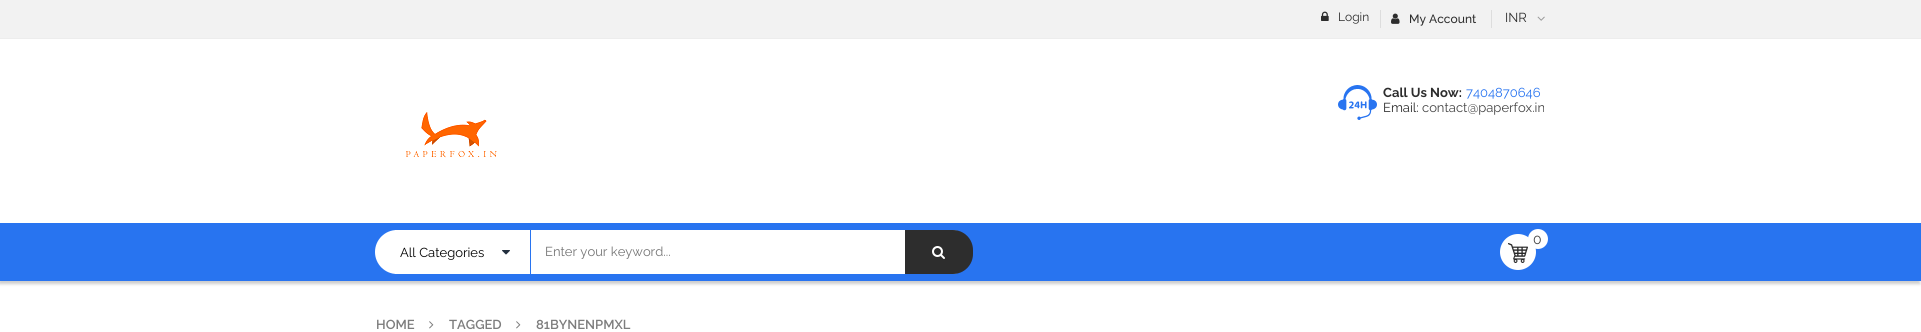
#include <cairo/cairo.h>
#include <math.h>
#include <stddef.h>

typedef struct { double x, y; const char *s; } line_t;
static cairo_t *cr;

static void rgb(unsigned color)
{
	cairo_set_source_rgb(cr, (color >> 16) / 255.0, (color >> 8 & 255) / 255.0, (color & 255) / 255.0);
}

static void rrect(double x, double y, double w, double h, double r)
{
	cairo_new_sub_path(cr);
	cairo_arc(cr, x + w - r, y + h - r, r, 0, M_PI / 2);
	cairo_arc(cr, x + r, y + h - r, r, M_PI / 2, M_PI);
	cairo_arc(cr, x + r, y + r, r, M_PI, 1.5 * M_PI);
	cairo_arc(cr, x + w - r, y + r, r, 1.5 * M_PI, 2 * M_PI);
	cairo_close_path(cr);
}

static void soft_shadow(double x, double y, double w, double h, double r, double blur, double alpha)
{
	cairo_push_group_with_content(cr, CAIRO_CONTENT_ALPHA);
	cairo_set_operator(cr, CAIRO_OPERATOR_SOURCE);
	for (int i = 15; i >= -15 && fmin(w, h) + blur * i / 3 > 0; i -= 2) {
		double e = blur * i / 6;
		cairo_set_source_rgba(cr, 0, 0, 0, alpha * erfc((i - 1) / 8.5) / 2);
		rrect(x - e, y - e, w + 2 * e, h + 2 * e, fmax(0, fmin(r + e + blur * .6, fmin(w, h) / 2 + e)));
		cairo_fill(cr);
	}
	cairo_pattern_t *soft = cairo_pop_group(cr);
	cairo_mask(cr, soft);
	cairo_pattern_destroy(soft);
}

static void image(const char *path, double x, double y, double w, double h)
{
	cairo_surface_t *image = cairo_image_surface_create_from_png(path);
	cairo_save(cr);
	cairo_set_source_surface(cr, image, x, y);
	cairo_rectangle(cr, x, y, w, h);
	cairo_fill(cr);
	cairo_restore(cr);
	cairo_surface_destroy(image);
}

int main(void) {
	cairo_surface_t *surface = cairo_image_surface_create(CAIRO_FORMAT_RGB24, 1921, 332);
	cr = cairo_create(surface);
	cairo_font_options_t *options = cairo_font_options_create();
	cairo_font_options_set_hint_metrics(options, CAIRO_HINT_METRICS_OFF);
	cairo_font_options_set_hint_style(options, CAIRO_HINT_STYLE_NONE);
	cairo_set_font_options(cr, options);
	cairo_set_miter_limit(cr, 4);
	rgb(0xffffff);
	cairo_paint(cr);
	rgb(0xf2f2f2);
	cairo_rectangle(cr, 0, 0, 1921, 38);
	cairo_fill(cr);
	rgb(0xededed);
	cairo_rectangle(cr, 0, 38, 1921, 1);
	cairo_fill(cr);
	image("img/1.png", 1321, 11, 8, 10);
	rgb(0xdddddd);
	cairo_rectangle(cr, 1380, 10, 1, 18);
	cairo_fill(cr);
	image("img/2.png", 1391, 13, 9, 11);
	cairo_rectangle(cr, 1491, 10, 1, 18);
	cairo_fill(cr);
	image("img/3.png", 1537, 16, 8, 5);
	image("img/4.png", 1338, 85, 39, 35);
	image("img/5.png", 406, 112, 91, 46);
	rgb(0x000000);
	soft_shadow(-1, 226, 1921, 58, 0, 1.5, 0.2);
	rgb(0x2874f0);
	cairo_rectangle(cr, 0, 223, 1921, 58);
	cairo_fill(cr);
	rgb(0xffffff);
	cairo_arc(cr, 1518, 252, 18, 0, 2 * M_PI);
	cairo_fill(cr);
	image("img/6.png", 1508, 243, 20, 20);
	cairo_arc(cr, 1538, 239, 10, 0, 2 * M_PI);
	cairo_fill(cr);
	rrect(375, 230, 596, 44, 22);
	cairo_fill(cr);
	rrect(395, 230, 576, 44, 20);
	cairo_fill(cr);
	cairo_rectangle(cr, 395, 230, 2, 44);
	cairo_fill(cr);
	rgb(0x2874f0);
	cairo_rectangle(cr, 530, 230, 1, 44);
	cairo_fill(cr);
	image("img/7.png", 502, 250, 8, 5);
	rgb(0x2d2d2d);
	cairo_new_path(cr);
	cairo_move_to(cr, 905, 230);
	cairo_line_to(cr, 953, 230);
	cairo_curve_to(cr, 964, 230, 973, 239, 973, 250);
	cairo_line_to(cr, 973, 254);
	cairo_curve_to(cr, 973, 265, 964, 274, 953, 274);
	cairo_line_to(cr, 905, 274);
	cairo_close_path(cr);
	cairo_fill(cr);
	image("img/8.png", 932, 246, 13, 13);
	image("img/9.png", 429, 321, 5, 8);
	image("img/9.png", 516, 321, 5, 8);
	cairo_select_font_face(cr, "Raleway", CAIRO_FONT_SLANT_NORMAL, CAIRO_FONT_WEIGHT_NORMAL);
	cairo_set_font_size(cr, 12);
	cairo_move_to(cr, 1338, 21);
	cairo_show_text(cr, "Login");
	cairo_select_font_face(cr, "Raleway Medium", CAIRO_FONT_SLANT_NORMAL, CAIRO_FONT_WEIGHT_NORMAL);
	cairo_move_to(cr, 1409, 23);
	cairo_show_text(cr, "My Account");
	cairo_select_font_face(cr, "Raleway", CAIRO_FONT_SLANT_NORMAL, CAIRO_FONT_WEIGHT_NORMAL);
	cairo_set_font_size(cr, 13);
	cairo_move_to(cr, 1505, 22);
	cairo_show_text(cr, "INR");
	cairo_select_font_face(cr, "Raleway", CAIRO_FONT_SLANT_NORMAL, CAIRO_FONT_WEIGHT_BOLD);
	cairo_move_to(cr, 1383, 97);
	cairo_show_text(cr, "Call Us Now:");
	cairo_select_font_face(cr, "Raleway", CAIRO_FONT_SLANT_NORMAL, CAIRO_FONT_WEIGHT_NORMAL);
	rgb(0x2874f0);
	cairo_move_to(cr, 1466, 97);
	cairo_show_text(cr, "7404870646");
	rgb(0x2d2d2d);
	cairo_move_to(cr, 1383, 112);
	cairo_show_text(cr, "Email:");
	rgb(0x464646);
	cairo_move_to(cr, 1422, 112);
	cairo_show_text(cr, "contact@paperfox.in");
	cairo_set_font_size(cr, 14);
	cairo_move_to(cr, 1533, 244);
	cairo_show_text(cr, "0");
	cairo_set_font_size(cr, 13);
	rgb(0x000000);
	cairo_move_to(cr, 400, 257);
	cairo_show_text(cr, "All Categories");
	rgb(0x757575);
	cairo_move_to(cr, 545, 256);
	cairo_show_text(cr, "Enter your keyword...");
	cairo_select_font_face(cr, "Raleway SemiBold", CAIRO_FONT_SLANT_NORMAL, CAIRO_FONT_WEIGHT_NORMAL);
	rgb(0x7d7d7d);
	{
		static const line_t items[] = {
			{376, 329, "HOME"},
			{449, 329, "TAGGED"},
			{536, 329, "81BYNENPMXL"},
		};
		for (size_t i = 0; i < sizeof items / sizeof *items; i++) {
			cairo_move_to(cr, items[i].x, items[i].y);
			cairo_show_text(cr, items[i].s);
		}
	}
	cairo_surface_write_to_png(surface, "page.png");
	cairo_font_options_destroy(options);
	cairo_destroy(cr);
	cairo_surface_destroy(surface);
	return 0;
}
